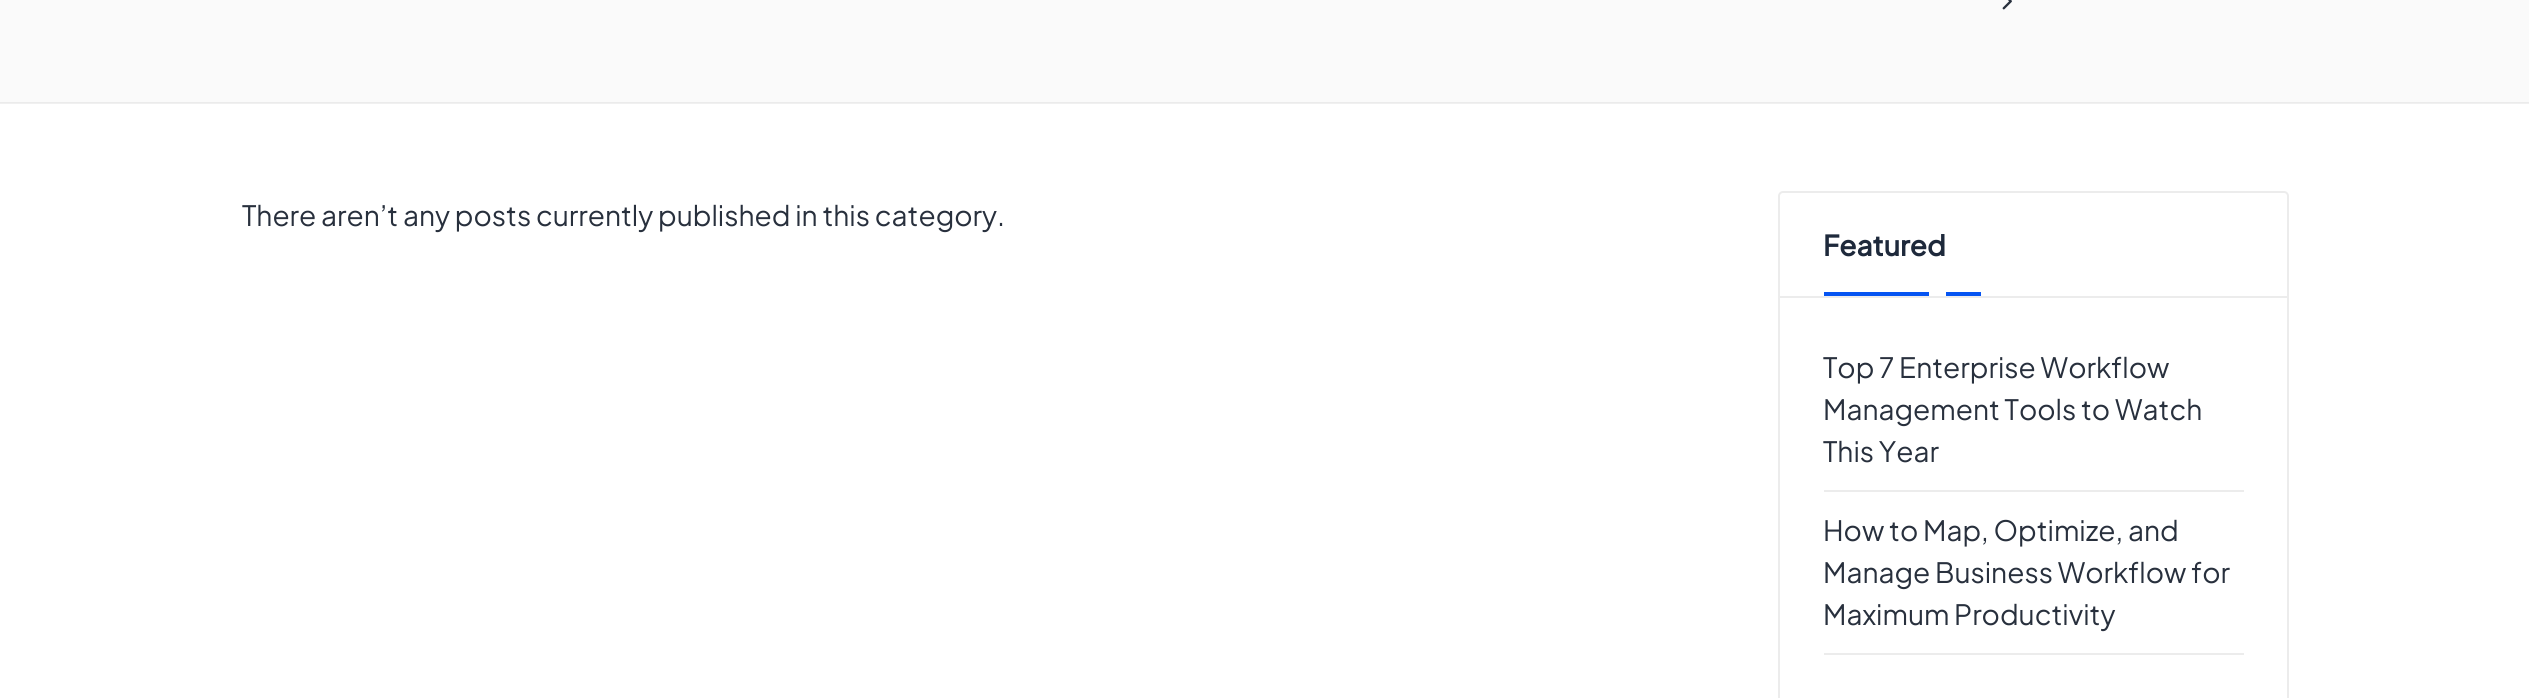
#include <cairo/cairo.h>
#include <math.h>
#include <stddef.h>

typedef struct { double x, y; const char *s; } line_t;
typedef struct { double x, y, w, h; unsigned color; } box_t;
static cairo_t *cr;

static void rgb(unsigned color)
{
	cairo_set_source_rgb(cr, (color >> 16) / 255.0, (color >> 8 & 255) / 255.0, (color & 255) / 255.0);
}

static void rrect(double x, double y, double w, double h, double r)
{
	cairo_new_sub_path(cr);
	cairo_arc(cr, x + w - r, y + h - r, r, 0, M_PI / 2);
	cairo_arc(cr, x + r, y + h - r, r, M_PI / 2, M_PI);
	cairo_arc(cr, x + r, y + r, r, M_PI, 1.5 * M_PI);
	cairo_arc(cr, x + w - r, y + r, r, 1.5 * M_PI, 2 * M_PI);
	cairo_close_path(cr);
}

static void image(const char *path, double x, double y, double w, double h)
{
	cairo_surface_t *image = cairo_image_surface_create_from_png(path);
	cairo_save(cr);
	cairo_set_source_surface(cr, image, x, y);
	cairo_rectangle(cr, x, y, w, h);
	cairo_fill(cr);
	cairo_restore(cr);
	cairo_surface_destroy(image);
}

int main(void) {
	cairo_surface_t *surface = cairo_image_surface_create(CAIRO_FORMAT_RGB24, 2529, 698);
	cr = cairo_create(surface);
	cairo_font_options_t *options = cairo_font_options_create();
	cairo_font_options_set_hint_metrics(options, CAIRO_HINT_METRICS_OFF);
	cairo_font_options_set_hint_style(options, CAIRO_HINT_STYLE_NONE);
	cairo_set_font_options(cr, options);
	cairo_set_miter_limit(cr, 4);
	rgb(0xffffff);
	cairo_paint(cr);
	{
		static const box_t items[] = {
			{0, 103, 2529, 1, 0xf0f0f0},
			{0, 0, 2529, 102, 0xfafafa},
			{0, 102, 2529, 1, 0xebebeb},
		};
		for (size_t i = 0; i < sizeof items / sizeof *items; i++) {
			rgb(items[i].color);
			cairo_rectangle(cr, items[i].x, items[i].y, items[i].w, items[i].h);
			cairo_fill(cr);
		}
	}
	image("img/1.png", 2002, 0, 10, 10);
	rrect(1779, 192, 509, 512, 4);
	rgb(0xececec);
	cairo_stroke(cr);
	{
		static const box_t items[] = {
			{1780, 296, 507, 2, 0xececec},
			{1824, 292, 105, 4, 0x0554f2},
			{1946, 292, 35, 4, 0x0554f2},
			{1824, 490, 420, 2, 0xececec},
			{1824, 653, 420, 2, 0xececec},
		};
		for (size_t i = 0; i < sizeof items / sizeof *items; i++) {
			rgb(items[i].color);
			cairo_rectangle(cr, items[i].x, items[i].y, items[i].w, items[i].h);
			cairo_fill(cr);
		}
	}
	cairo_select_font_face(cr, "Plus Jakarta Sans", CAIRO_FONT_SLANT_NORMAL, CAIRO_FONT_WEIGHT_NORMAL);
	cairo_set_font_size(cr, 28);
	rgb(0x28303d);
	cairo_move_to(cr, 242, 226);
	cairo_show_text(cr, "There aren’t any posts currently published in this category.");
	cairo_select_font_face(cr, "Plus Jakarta Sans", CAIRO_FONT_SLANT_NORMAL, CAIRO_FONT_WEIGHT_BOLD);
	rgb(0x1e293b);
	cairo_move_to(cr, 1823, 256);
	cairo_show_text(cr, "Featured");
	cairo_select_font_face(cr, "Plus Jakarta Sans", CAIRO_FONT_SLANT_NORMAL, CAIRO_FONT_WEIGHT_NORMAL);
	rgb(0x28303d);
	{
		static const line_t items[] = {
			{1823, 378, "Top 7 Enterprise Workflow"},
			{1823, 420, "Management Tools to Watch"},
			{1823, 462, "This Year"},
			{1823, 541, "How to Map, Optimize, and"},
			{1823, 583, "Manage Business Workflow for"},
			{1823, 625, "Maximum Productivity"},
		};
		for (size_t i = 0; i < sizeof items / sizeof *items; i++) {
			cairo_move_to(cr, items[i].x, items[i].y);
			cairo_show_text(cr, items[i].s);
		}
	}
	cairo_surface_write_to_png(surface, "page.png");
	cairo_font_options_destroy(options);
	cairo_destroy(cr);
	cairo_surface_destroy(surface);
	return 0;
}
